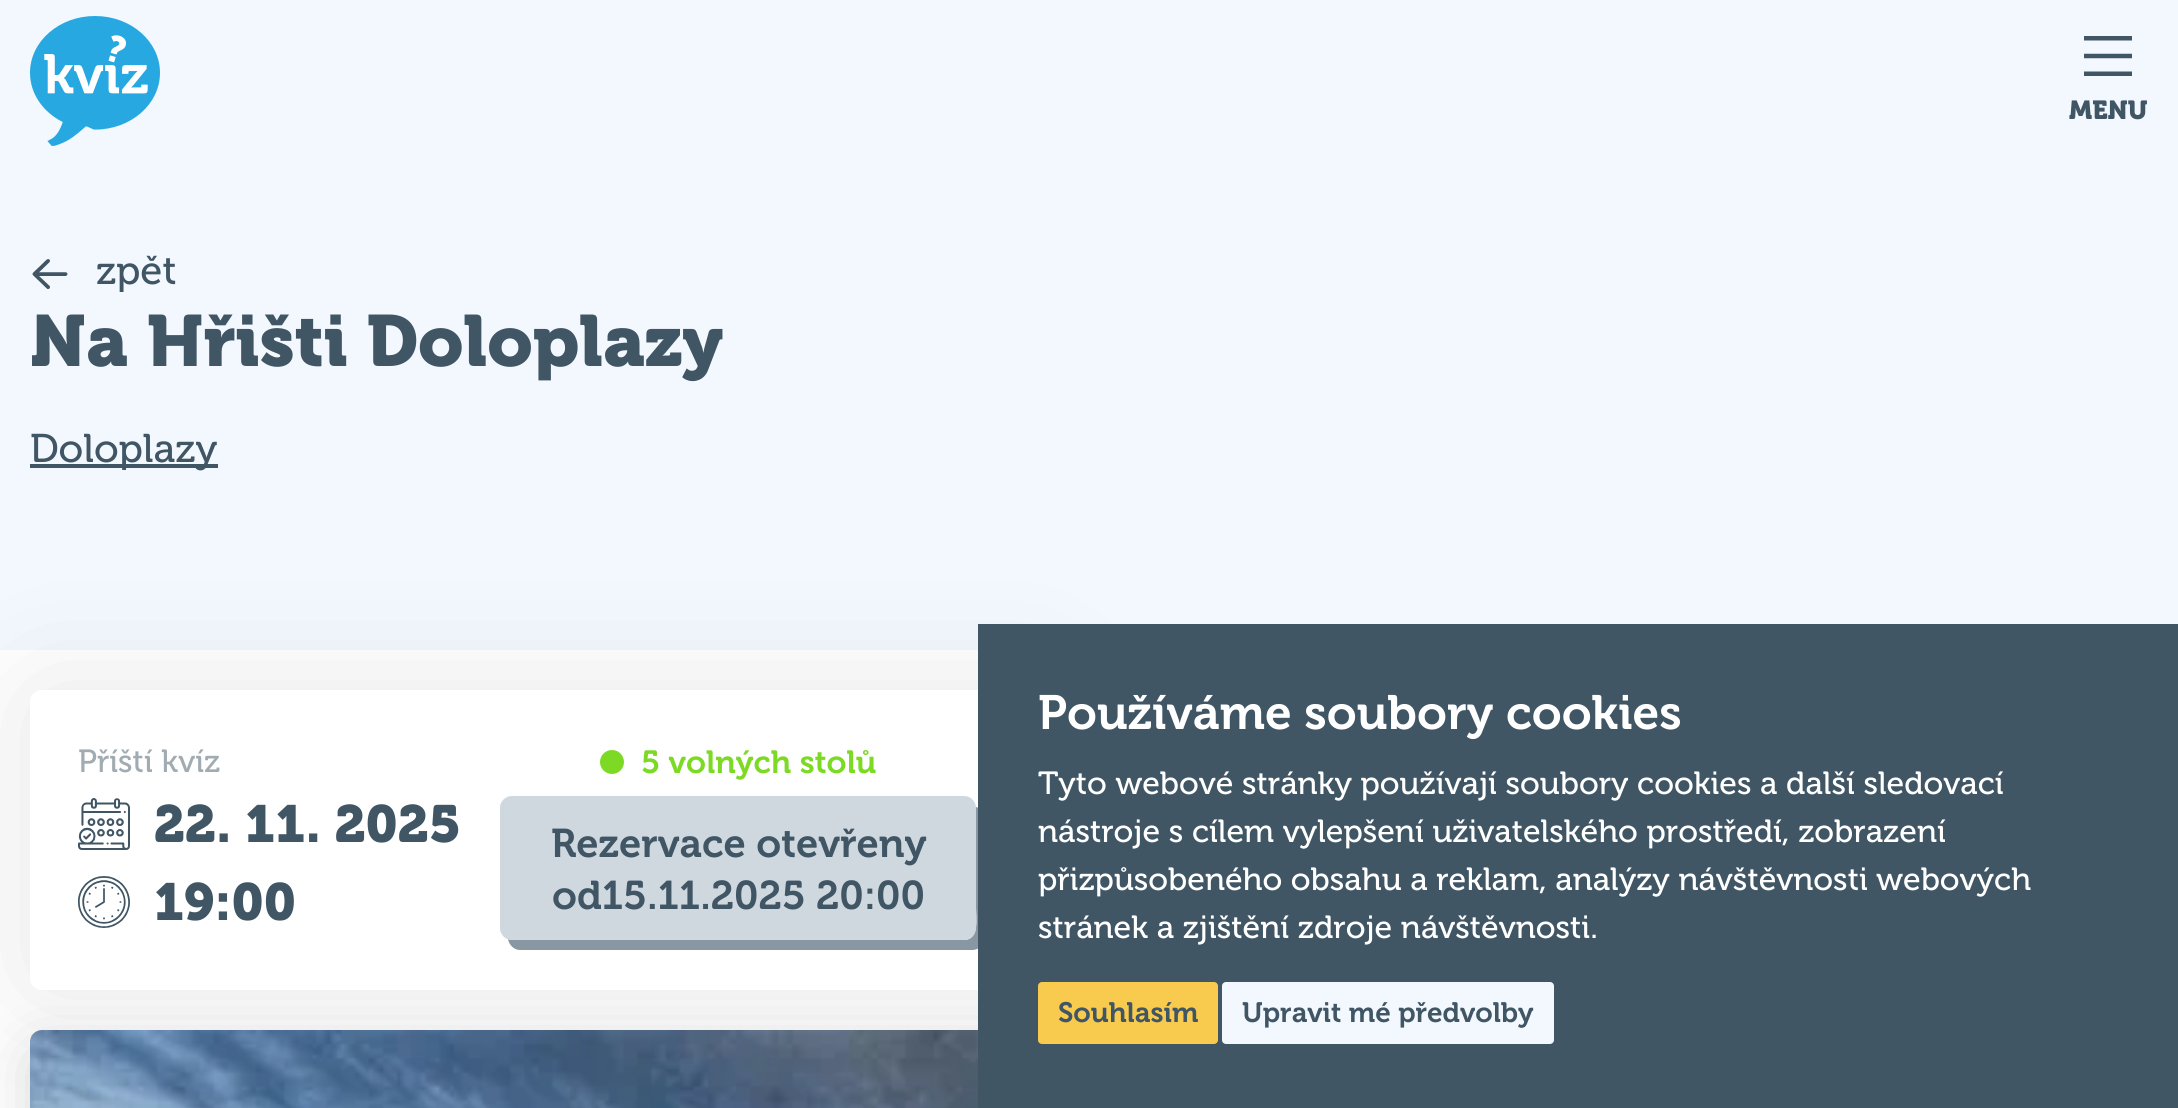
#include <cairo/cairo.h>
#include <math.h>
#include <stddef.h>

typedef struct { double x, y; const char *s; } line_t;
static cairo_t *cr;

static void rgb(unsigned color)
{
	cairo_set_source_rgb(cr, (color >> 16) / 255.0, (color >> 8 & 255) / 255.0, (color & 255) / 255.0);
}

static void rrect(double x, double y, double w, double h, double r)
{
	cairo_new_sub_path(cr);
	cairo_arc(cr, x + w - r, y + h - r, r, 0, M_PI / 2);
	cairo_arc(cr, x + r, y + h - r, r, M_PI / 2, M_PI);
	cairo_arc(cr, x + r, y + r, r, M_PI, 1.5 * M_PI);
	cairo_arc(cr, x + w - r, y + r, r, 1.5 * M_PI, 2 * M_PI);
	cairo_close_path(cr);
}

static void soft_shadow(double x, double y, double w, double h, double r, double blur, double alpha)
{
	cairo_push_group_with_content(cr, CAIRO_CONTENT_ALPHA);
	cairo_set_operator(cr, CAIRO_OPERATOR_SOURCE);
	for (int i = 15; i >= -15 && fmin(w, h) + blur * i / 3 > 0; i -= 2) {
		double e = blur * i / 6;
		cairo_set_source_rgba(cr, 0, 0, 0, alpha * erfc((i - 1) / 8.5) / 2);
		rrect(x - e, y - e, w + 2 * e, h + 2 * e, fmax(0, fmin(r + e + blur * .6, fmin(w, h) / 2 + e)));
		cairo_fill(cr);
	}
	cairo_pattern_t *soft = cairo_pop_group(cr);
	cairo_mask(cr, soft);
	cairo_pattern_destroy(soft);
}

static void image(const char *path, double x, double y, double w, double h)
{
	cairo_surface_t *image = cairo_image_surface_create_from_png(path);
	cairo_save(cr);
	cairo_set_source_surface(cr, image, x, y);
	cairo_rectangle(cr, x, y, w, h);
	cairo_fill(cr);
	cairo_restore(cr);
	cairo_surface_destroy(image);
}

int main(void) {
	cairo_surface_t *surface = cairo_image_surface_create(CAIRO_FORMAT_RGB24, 2178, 1108);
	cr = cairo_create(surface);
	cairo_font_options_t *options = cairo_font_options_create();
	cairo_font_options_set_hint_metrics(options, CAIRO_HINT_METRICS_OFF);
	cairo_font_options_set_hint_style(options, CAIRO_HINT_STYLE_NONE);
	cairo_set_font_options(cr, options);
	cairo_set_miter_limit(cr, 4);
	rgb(0xffffff);
	cairo_paint(cr);
	rgb(0xf3f8fe);
	cairo_rectangle(cr, 0, 0, 2178, 650);
	cairo_fill(cr);
	image("img/1.png", 30, 16, 130, 130);
	image("img/2.png", 2084, 36, 48, 40);
	image("img/3.png", 32, 259, 36, 30);
	rgb(0x405665);
	cairo_rectangle(cr, 30, 464, 188, 4);
	cairo_fill(cr);
	rgb(0x000000);
	soft_shadow(30, 690, 1022, 300, 12, 60, 0.1);
	rgb(0xffffff);
	rrect(30, 690, 1022, 300, 12);
	cairo_fill(cr);
	image("img/4.png", 78, 798, 52, 52);
	image("img/5.png", 78, 876, 52, 52);
	rgb(0x7cda24);
	cairo_arc(cr, 612, 762, 12, 0, 2 * M_PI);
	cairo_fill(cr);
	rgb(0x8897a2);
	cairo_new_path(cr);
	cairo_move_to(cr, 508, 939);
	cairo_curve_to(cr, 509, 945, 514, 950, 520, 950);
	cairo_line_to(cr, 972, 950);
	cairo_curve_to(cr, 979, 950, 984, 945, 984, 938);
	cairo_line_to(cr, 984, 818);
	cairo_curve_to(cr, 984, 813, 981, 808, 976, 807);
	cairo_line_to(cr, 976, 908);
	cairo_curve_to(cr, 976, 917, 980, 940, 964, 940);
	cairo_line_to(cr, 512, 940);
	cairo_close_path(cr);
	cairo_fill(cr);
	rgb(0xcfd7df);
	rrect(500, 796, 476, 144, 12);
	cairo_fill(cr);
	rgb(0x000000);
	soft_shadow(30, 1050, 2118, 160, 12, 30, 0.15);
	image("img/6.png", 30, 1030, 948, 78);
	rgb(0x405665);
	cairo_rectangle(cr, 978, 624, 1200, 484);
	cairo_fill(cr);
	rgb(0xf8ca4d);
	rrect(1038, 982, 180, 62, 4);
	cairo_fill(cr);
	rgb(0xf3f8fe);
	rrect(1222, 982, 332, 62, 4);
	cairo_fill(cr);
	cairo_select_font_face(cr, "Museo", CAIRO_FONT_SLANT_NORMAL, CAIRO_FONT_WEIGHT_BOLD);
	cairo_set_font_size(cr, 26);
	rgb(0x405665);
	cairo_move_to(cr, 2069, 119);
	cairo_show_text(cr, "MENU");
	cairo_select_font_face(cr, "Museo", CAIRO_FONT_SLANT_NORMAL, CAIRO_FONT_WEIGHT_NORMAL);
	cairo_set_font_size(cr, 40);
	cairo_move_to(cr, 96, 284);
	cairo_show_text(cr, "zpět");
	cairo_select_font_face(cr, "Museo", CAIRO_FONT_SLANT_NORMAL, CAIRO_FONT_WEIGHT_BOLD);
	cairo_set_font_size(cr, 72);
	cairo_move_to(cr, 30, 366);
	cairo_show_text(cr, "Na Hřišti Doloplazy");
	cairo_select_font_face(cr, "Museo", CAIRO_FONT_SLANT_NORMAL, CAIRO_FONT_WEIGHT_NORMAL);
	cairo_set_font_size(cr, 40);
	cairo_move_to(cr, 30, 462);
	cairo_show_text(cr, "Doloplazy");
	cairo_set_font_size(cr, 32);
	rgb(0xa0abb2);
	cairo_move_to(cr, 78, 772);
	cairo_show_text(cr, "Příští kvíz");
	cairo_select_font_face(cr, "Museo", CAIRO_FONT_SLANT_NORMAL, CAIRO_FONT_WEIGHT_BOLD);
	cairo_set_font_size(cr, 52);
	rgb(0x405665);
	cairo_move_to(cr, 154, 842);
	cairo_show_text(cr, "22. 11. 2025");
	cairo_move_to(cr, 154, 920);
	cairo_show_text(cr, "19:00");
	cairo_select_font_face(cr, "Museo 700 SemiBold", CAIRO_FONT_SLANT_NORMAL, CAIRO_FONT_WEIGHT_NORMAL);
	cairo_set_font_size(cr, 32);
	rgb(0x7cda24);
	cairo_move_to(cr, 641, 773);
	cairo_show_text(cr, "5 volných stolů");
	cairo_set_font_size(cr, 40);
	rgb(0x405665);
	cairo_move_to(cr, 551, 857);
	cairo_show_text(cr, "Rezervace otevřeny");
	cairo_move_to(cr, 552, 909);
	cairo_show_text(cr, "od15.11.2025 20:00");
	cairo_set_font_size(cr, 48);
	rgb(0xffffff);
	cairo_move_to(cr, 1038, 729);
	cairo_show_text(cr, "Používáme soubory cookies");
	cairo_select_font_face(cr, "Museo", CAIRO_FONT_SLANT_NORMAL, CAIRO_FONT_WEIGHT_NORMAL);
	cairo_set_font_size(cr, 32);
	{
		static const line_t items[] = {
			{1038, 794, "Tyto webové stránky používají soubory cookies a další sledovací"},
			{1038, 842, "nástroje s cílem vylepšení uživatelského prostředí, zobrazení"},
			{1038, 890, "přizpůsobeného obsahu a reklam, analýzy návštěvnosti webových"},
			{1038, 938, "stránek a zjištění zdroje návštěvnosti."},
		};
		for (size_t i = 0; i < sizeof items / sizeof *items; i++) {
			cairo_move_to(cr, items[i].x, items[i].y);
			cairo_show_text(cr, items[i].s);
		}
	}
	cairo_select_font_face(cr, "Museo 700 SemiBold", CAIRO_FONT_SLANT_NORMAL, CAIRO_FONT_WEIGHT_NORMAL);
	cairo_set_font_size(cr, 28);
	rgb(0x405665);
	cairo_move_to(cr, 1058, 1022);
	cairo_show_text(cr, "Souhlasím");
	cairo_move_to(cr, 1242, 1022);
	cairo_show_text(cr, "Upravit mé předvolby");
	cairo_surface_write_to_png(surface, "page.png");
	cairo_font_options_destroy(options);
	cairo_destroy(cr);
	cairo_surface_destroy(surface);
	return 0;
}
